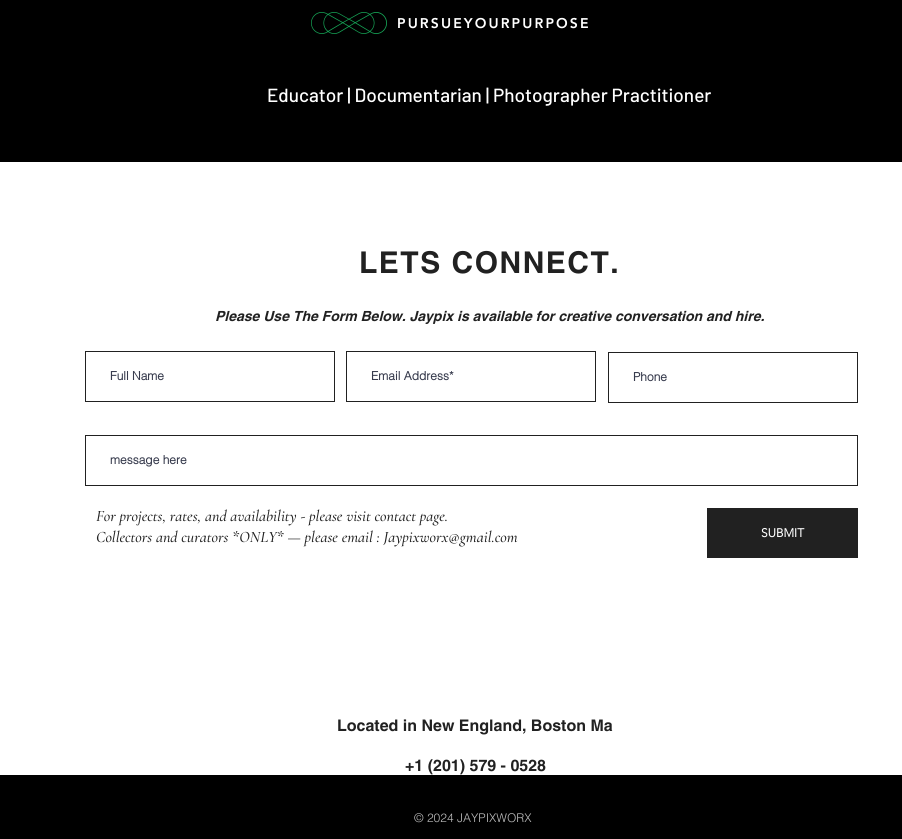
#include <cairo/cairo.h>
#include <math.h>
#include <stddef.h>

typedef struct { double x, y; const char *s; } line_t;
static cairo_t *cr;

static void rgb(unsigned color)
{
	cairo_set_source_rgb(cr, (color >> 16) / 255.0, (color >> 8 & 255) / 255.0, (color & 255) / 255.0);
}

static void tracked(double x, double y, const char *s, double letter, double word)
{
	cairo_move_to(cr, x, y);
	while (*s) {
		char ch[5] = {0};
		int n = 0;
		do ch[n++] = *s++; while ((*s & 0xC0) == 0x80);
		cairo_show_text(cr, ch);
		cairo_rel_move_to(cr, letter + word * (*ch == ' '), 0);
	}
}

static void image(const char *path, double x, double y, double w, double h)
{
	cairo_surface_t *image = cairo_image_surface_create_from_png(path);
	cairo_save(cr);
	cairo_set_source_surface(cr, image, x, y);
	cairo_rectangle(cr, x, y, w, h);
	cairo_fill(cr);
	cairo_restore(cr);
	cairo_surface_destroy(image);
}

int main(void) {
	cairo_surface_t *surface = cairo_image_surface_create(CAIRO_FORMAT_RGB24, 902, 839);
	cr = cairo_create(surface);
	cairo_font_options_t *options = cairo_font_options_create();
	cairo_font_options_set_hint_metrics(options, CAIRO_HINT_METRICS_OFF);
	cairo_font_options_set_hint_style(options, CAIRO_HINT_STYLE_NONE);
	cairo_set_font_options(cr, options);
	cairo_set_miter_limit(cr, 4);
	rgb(0xffffff);
	cairo_paint(cr);
	rgb(0x000000);
	cairo_rectangle(cr, 0, 0, 902, 162);
	cairo_fill(cr);
	image("img/1.png", 311, 12, 76, 22);
	cairo_rectangle(cr, 85.5, 351.5, 249, 50);
	rgb(0x212121);
	cairo_set_line_width(cr, 1);
	cairo_stroke(cr);
	cairo_rectangle(cr, 346.5, 351.5, 249, 50);
	cairo_stroke(cr);
	cairo_rectangle(cr, 608.5, 352.5, 249, 50);
	cairo_stroke(cr);
	cairo_rectangle(cr, 85.5, 435.5, 772, 50);
	cairo_stroke(cr);
	cairo_rectangle(cr, 707, 508, 151, 50);
	cairo_fill(cr);
	rgb(0x000000);
	cairo_rectangle(cr, 0, 775, 902, 64);
	cairo_fill(cr);
	cairo_select_font_face(cr, "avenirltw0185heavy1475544 Black", CAIRO_FONT_SLANT_NORMAL, CAIRO_FONT_WEIGHT_NORMAL);
	cairo_set_font_size(cr, 14);
	rgb(0xffffff);
	tracked(397, 28, "PURSUEYOURPURPOSE", 2.1, 0);
	cairo_select_font_face(cr, "Barlow Medium", CAIRO_FONT_SLANT_NORMAL, CAIRO_FONT_WEIGHT_NORMAL);
	cairo_set_font_size(cr, 19);
	cairo_move_to(cr, 267, 102);
	cairo_show_text(cr, "Educator | Documentarian | Photographer Practitioner");
	cairo_select_font_face(cr, "helvetica", CAIRO_FONT_SLANT_NORMAL, CAIRO_FONT_WEIGHT_BOLD);
	cairo_set_font_size(cr, 30);
	rgb(0x212121);
	tracked(359, 273, "LETS CONNECT.", 1.5, 0);
	cairo_select_font_face(cr, "helvetica", CAIRO_FONT_SLANT_ITALIC, CAIRO_FONT_WEIGHT_BOLD);
	cairo_set_font_size(cr, 14);
	cairo_move_to(cr, 215, 321);
	cairo_show_text(cr, "Please Use The Form Below. Jaypix is available for creative conversation and hire.");
	cairo_select_font_face(cr, "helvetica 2", CAIRO_FONT_SLANT_NORMAL, CAIRO_FONT_WEIGHT_BOLD);
	cairo_set_font_size(cr, 12);
	rgb(0x373b4d);
	{
		static const line_t items[] = {
			{110, 380, "Full Name"},
			{371, 380, "Email Address*"},
			{633, 381, "Phone"},
			{110, 464, "message here"},
		};
		for (size_t i = 0; i < sizeof items / sizeof *items; i++) {
			cairo_move_to(cr, items[i].x, items[i].y);
			cairo_show_text(cr, items[i].s);
		}
	}
	cairo_select_font_face(cr, "Cormorant Garamond Medium", CAIRO_FONT_SLANT_ITALIC, CAIRO_FONT_WEIGHT_NORMAL);
	cairo_set_font_size(cr, 16);
	rgb(0x212121);
	cairo_move_to(cr, 96, 521);
	cairo_show_text(cr, "For projects, rates, and availability - please visit contact page.");
	cairo_move_to(cr, 96, 542);
	cairo_show_text(cr, "Collectors and curators *ONLY* — please email : Jaypixworx@gmail.com");
	cairo_select_font_face(cr, "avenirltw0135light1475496", CAIRO_FONT_SLANT_NORMAL, CAIRO_FONT_WEIGHT_BOLD);
	cairo_set_font_size(cr, 12);
	rgb(0xffffff);
	cairo_move_to(cr, 761, 537);
	cairo_show_text(cr, "SUBMIT");
	cairo_select_font_face(cr, "helvetica", CAIRO_FONT_SLANT_NORMAL, CAIRO_FONT_WEIGHT_BOLD);
	cairo_set_font_size(cr, 16);
	rgb(0x212121);
	cairo_move_to(cr, 337, 731);
	cairo_show_text(cr, "Located in New England, Boston Ma");
	cairo_move_to(cr, 405, 771);
	cairo_show_text(cr, "+1 (201) 579 - 0528");
	cairo_select_font_face(cr, "helvetica Light", CAIRO_FONT_SLANT_NORMAL, CAIRO_FONT_WEIGHT_NORMAL);
	cairo_set_font_size(cr, 12);
	rgb(0xbfbfbf);
	cairo_move_to(cr, 414, 822);
	cairo_show_text(cr, "© 2024 JAYPIXWORX");
	cairo_surface_write_to_png(surface, "page.png");
	cairo_font_options_destroy(options);
	cairo_destroy(cr);
	cairo_surface_destroy(surface);
	return 0;
}
